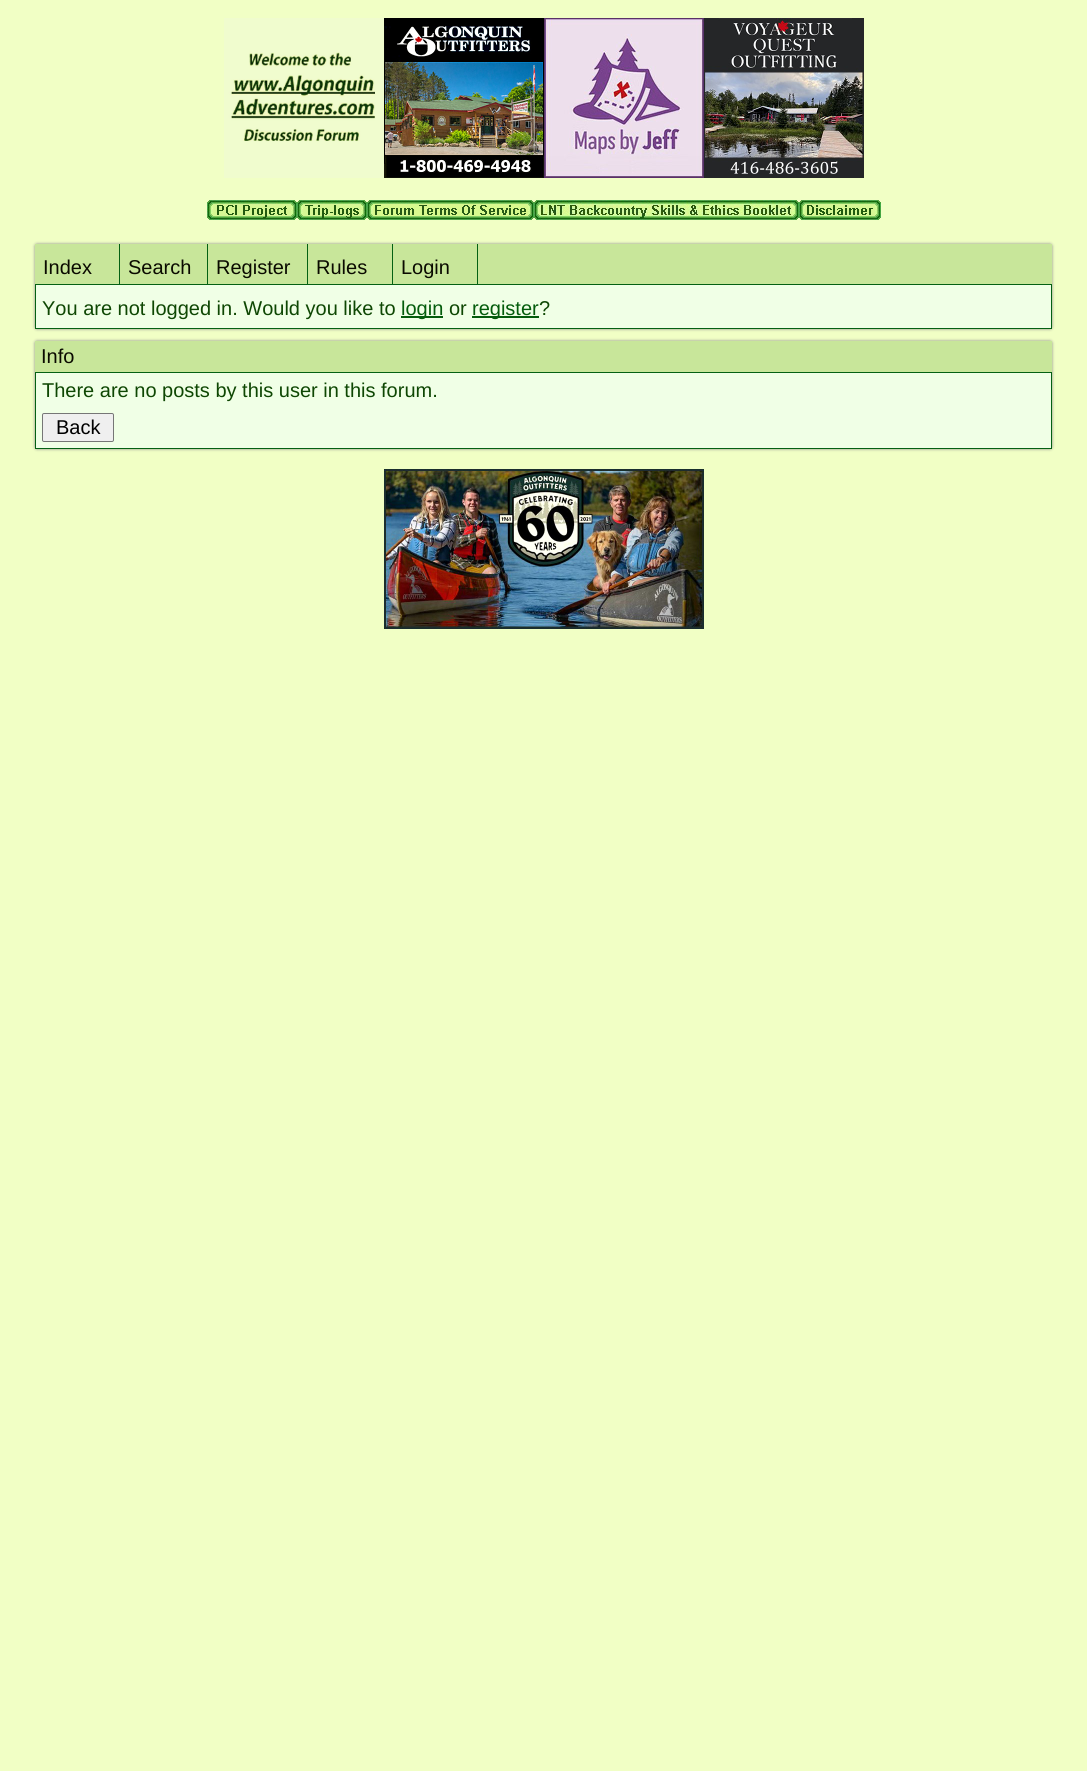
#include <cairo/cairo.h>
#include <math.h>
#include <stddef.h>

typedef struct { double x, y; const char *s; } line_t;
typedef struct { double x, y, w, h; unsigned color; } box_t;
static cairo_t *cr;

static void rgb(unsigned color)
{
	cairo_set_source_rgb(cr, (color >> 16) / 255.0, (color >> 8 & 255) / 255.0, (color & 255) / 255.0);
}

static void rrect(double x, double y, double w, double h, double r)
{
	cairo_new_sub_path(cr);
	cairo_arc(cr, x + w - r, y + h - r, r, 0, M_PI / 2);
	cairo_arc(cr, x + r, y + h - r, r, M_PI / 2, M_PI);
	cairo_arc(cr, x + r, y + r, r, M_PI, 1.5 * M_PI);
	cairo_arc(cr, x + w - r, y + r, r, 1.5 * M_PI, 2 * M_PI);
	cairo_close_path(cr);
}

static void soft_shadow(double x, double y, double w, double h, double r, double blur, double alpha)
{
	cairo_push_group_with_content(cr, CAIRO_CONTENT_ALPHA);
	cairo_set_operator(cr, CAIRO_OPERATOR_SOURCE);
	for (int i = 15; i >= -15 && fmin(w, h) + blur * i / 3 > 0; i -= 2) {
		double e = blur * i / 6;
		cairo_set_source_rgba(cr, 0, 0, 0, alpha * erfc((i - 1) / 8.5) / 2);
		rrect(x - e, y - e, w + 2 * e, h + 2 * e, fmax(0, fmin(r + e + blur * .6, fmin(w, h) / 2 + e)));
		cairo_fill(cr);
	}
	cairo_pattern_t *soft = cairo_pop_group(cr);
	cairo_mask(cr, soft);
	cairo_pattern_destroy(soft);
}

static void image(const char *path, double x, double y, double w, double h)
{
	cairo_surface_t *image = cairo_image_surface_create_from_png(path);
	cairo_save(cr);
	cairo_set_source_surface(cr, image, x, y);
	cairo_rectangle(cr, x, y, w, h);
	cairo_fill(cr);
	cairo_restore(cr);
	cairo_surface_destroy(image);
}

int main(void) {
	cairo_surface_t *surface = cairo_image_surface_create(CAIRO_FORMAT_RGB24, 1087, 1771);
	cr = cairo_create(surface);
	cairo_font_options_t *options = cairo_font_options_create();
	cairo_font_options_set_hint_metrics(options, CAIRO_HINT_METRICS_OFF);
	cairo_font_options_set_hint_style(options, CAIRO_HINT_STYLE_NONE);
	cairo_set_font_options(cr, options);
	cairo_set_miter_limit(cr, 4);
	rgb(0xf1ffc5);
	cairo_paint(cr);
	image("img/1.png", 224, 18, 160, 160);
	image("img/2.png", 384, 18, 160, 160);
	image("img/3.png", 544, 18, 160, 160);
	image("img/4.png", 704, 18, 160, 160);
	image("img/5.png", 207, 200, 90, 20);
	image("img/6.png", 297, 200, 70, 20);
	image("img/7.png", 367, 200, 167, 20);
	image("img/8.png", 534, 200, 265, 20);
	image("img/9.png", 799, 200, 82, 20);
	rgb(0x888888);
	soft_shadow(35, 244, 1017, 85, 2, 1.5, 1);
	rgb(0xf0ffe6);
	cairo_rectangle(cr, 36, 285, 1015, 43);
	cairo_fill(cr);
	cairo_rectangle(cr, 35.5, 244.5, 1016, 84);
	rgb(0x046113);
	cairo_set_line_width(cr, 1);
	cairo_stroke(cr);
	{
		static const box_t items[] = {
			{35, 244, 1017, 40, 0xc8e69a},
			{35, 284, 1017, 1, 0x046113},
			{119, 244, 1, 40, 0x046113},
			{207, 244, 1, 40, 0x046113},
			{307, 244, 1, 40, 0x046113},
			{392, 244, 1, 40, 0x046113},
			{477, 244, 1, 40, 0x046113},
			{401, 316, 42, 2, 0x045c0c},
			{472, 316, 67, 2, 0x045c0c},
		};
		for (size_t i = 0; i < sizeof items / sizeof *items; i++) {
			rgb(items[i].color);
			cairo_rectangle(cr, items[i].x, items[i].y, items[i].w, items[i].h);
			cairo_fill(cr);
		}
	}
	rgb(0x888888);
	soft_shadow(35, 341, 1017, 108, 2, 1.5, 1);
	rgb(0xc8e69a);
	cairo_rectangle(cr, 35, 341, 1017, 31);
	cairo_fill(cr);
	rgb(0xf0ffe6);
	cairo_rectangle(cr, 35.5, 372.5, 1016, 76);
	cairo_fill_preserve(cr);
	rgb(0x046113);
	cairo_stroke(cr);
	rgb(0xefefef);
	rrect(42.5, 413.5, 71, 28, 1.5);
	cairo_fill_preserve(cr);
	rgb(0x767676);
	cairo_stroke(cr);
	image("img/10.png", 384, 469, 320, 160);
	cairo_select_font_face(cr, "Liberation Sans", CAIRO_FONT_SLANT_NORMAL, CAIRO_FONT_WEIGHT_NORMAL);
	cairo_set_font_size(cr, 20);
	rgb(0x0a0a00);
	{
		static const line_t items[] = {
			{43, 274, "Index"},
			{128, 274, "Search"},
			{216, 274, "Register"},
			{316, 274, "Rules"},
			{401, 274, "Login"},
		};
		for (size_t i = 0; i < sizeof items / sizeof *items; i++) {
			cairo_move_to(cr, items[i].x, items[i].y);
			cairo_show_text(cr, items[i].s);
		}
	}
	rgb(0x0e4703);
	cairo_move_to(cr, 42, 315);
	cairo_show_text(cr, "You are not logged in. Would you like to");
	rgb(0x045c0c);
	cairo_move_to(cr, 401, 315);
	cairo_show_text(cr, "login");
	rgb(0x0e4703);
	cairo_move_to(cr, 449, 315);
	cairo_show_text(cr, "or");
	rgb(0x045c0c);
	cairo_move_to(cr, 472, 315);
	cairo_show_text(cr, "register");
	rgb(0x0e4703);
	cairo_move_to(cr, 539, 315);
	cairo_show_text(cr, "?");
	rgb(0x0a0a00);
	cairo_move_to(cr, 41, 363);
	cairo_show_text(cr, "Info");
	rgb(0x0e4703);
	cairo_move_to(cr, 42, 397);
	cairo_show_text(cr, "There are no posts by this user in this forum.");
	rgb(0x000000);
	cairo_move_to(cr, 56, 434);
	cairo_show_text(cr, "Back");
	cairo_surface_write_to_png(surface, "page.png");
	cairo_font_options_destroy(options);
	cairo_destroy(cr);
	cairo_surface_destroy(surface);
	return 0;
}
